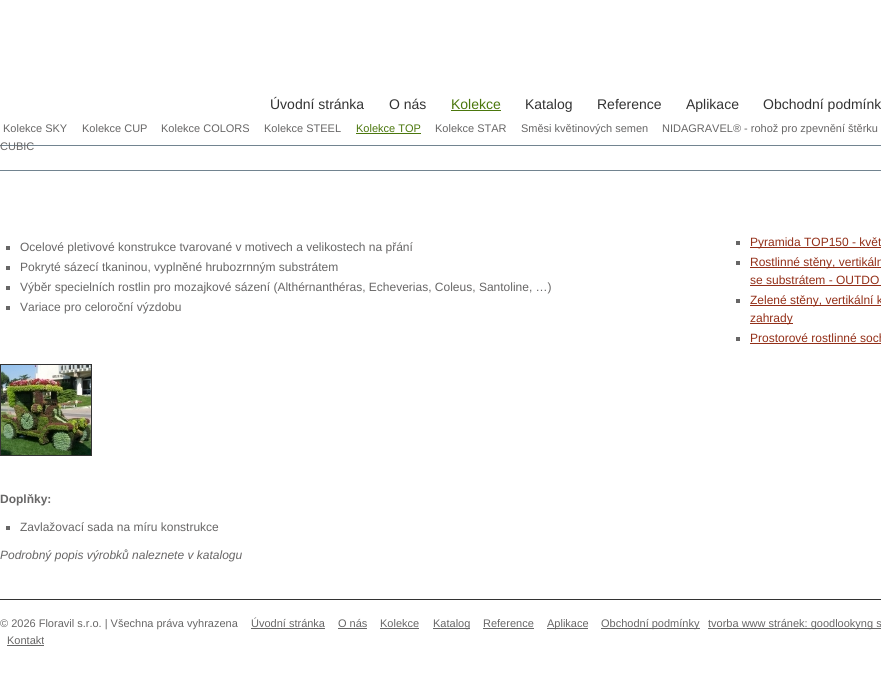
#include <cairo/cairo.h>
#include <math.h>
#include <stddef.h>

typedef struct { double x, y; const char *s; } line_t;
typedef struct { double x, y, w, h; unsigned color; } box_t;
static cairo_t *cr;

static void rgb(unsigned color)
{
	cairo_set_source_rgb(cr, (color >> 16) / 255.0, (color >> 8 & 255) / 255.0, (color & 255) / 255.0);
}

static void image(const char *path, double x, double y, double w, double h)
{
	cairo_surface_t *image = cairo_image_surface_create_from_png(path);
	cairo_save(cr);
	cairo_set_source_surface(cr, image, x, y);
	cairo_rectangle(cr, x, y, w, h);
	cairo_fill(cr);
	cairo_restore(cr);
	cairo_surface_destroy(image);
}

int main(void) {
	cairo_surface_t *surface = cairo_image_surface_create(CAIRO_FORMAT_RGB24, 881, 691);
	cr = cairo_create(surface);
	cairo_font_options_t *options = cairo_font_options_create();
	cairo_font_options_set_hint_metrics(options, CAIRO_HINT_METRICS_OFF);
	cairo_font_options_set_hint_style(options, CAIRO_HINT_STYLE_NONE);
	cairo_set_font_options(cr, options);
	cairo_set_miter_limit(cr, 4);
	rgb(0xffffff);
	cairo_paint(cr);
	{
		static const box_t items[] = {
			{451, 110, 50, 1, 0x4b770d},
			{356, 133, 65, 1, 0x4b770d},
			{0, 145, 881, 1, 0x728490},
			{0, 170, 881, 1, 0x728490},
			{6, 246, 4, 4, 0x676666},
			{6, 266, 4, 4, 0x676666},
			{6, 286, 4, 4, 0x676666},
			{6, 306, 4, 4, 0x676666},
		};
		for (size_t i = 0; i < sizeof items / sizeof *items; i++) {
			rgb(items[i].color);
			cairo_rectangle(cr, items[i].x, items[i].y, items[i].w, items[i].h);
			cairo_fill(cr);
		}
	}
	cairo_rectangle(cr, 0.5, 364.5, 91, 91);
	rgb(0x333333);
	cairo_set_line_width(cr, 1);
	cairo_stroke(cr);
	image("img/1.png", 1, 365, 90, 90);
	{
		static const box_t items[] = {
			{6, 526, 4, 4, 0x676666},
			{736, 241, 4, 4, 0x676666},
			{750, 247, 131, 1, 0x932f18},
			{736, 261, 4, 4, 0x676666},
			{750, 267, 131, 1, 0x932f18},
			{750, 285, 131, 1, 0x932f18},
			{736, 299, 4, 4, 0x676666},
			{750, 305, 131, 1, 0x932f18},
			{750, 323, 43, 1, 0x932f18},
			{736, 337, 4, 4, 0x676666},
			{750, 343, 131, 1, 0x932f18},
			{0, 599, 881, 1, 0x333333},
			{251, 628, 74, 1, 0x666666},
			{338, 628, 29, 1, 0x666666},
			{380, 628, 39, 1, 0x666666},
			{433, 628, 37, 1, 0x666666},
			{483, 628, 51, 1, 0x666666},
			{547, 628, 41, 1, 0x666666},
			{601, 628, 99, 1, 0x666666},
			{708, 628, 173, 1, 0x666666},
			{7, 645, 37, 1, 0x666666},
		};
		for (size_t i = 0; i < sizeof items / sizeof *items; i++) {
			rgb(items[i].color);
			cairo_rectangle(cr, items[i].x, items[i].y, items[i].w, items[i].h);
			cairo_fill(cr);
		}
	}
	cairo_select_font_face(cr, "Liberation Sans", CAIRO_FONT_SLANT_NORMAL, CAIRO_FONT_WEIGHT_NORMAL);
	cairo_set_font_size(cr, 14);
	rgb(0x333333);
	cairo_move_to(cr, 270, 109);
	cairo_show_text(cr, "Úvodní stránka");
	cairo_move_to(cr, 389, 109);
	cairo_show_text(cr, "O nás");
	rgb(0x4b770d);
	cairo_move_to(cr, 451, 109);
	cairo_show_text(cr, "Kolekce");
	rgb(0x333333);
	{
		static const line_t items[] = {
			{525, 109, "Katalog"},
			{597, 109, "Reference"},
			{686, 109, "Aplikace"},
			{763, 109, "Obchodní podmínk"},
		};
		for (size_t i = 0; i < sizeof items / sizeof *items; i++) {
			cairo_move_to(cr, items[i].x, items[i].y);
			cairo_show_text(cr, items[i].s);
		}
	}
	cairo_set_font_size(cr, 11);
	rgb(0x676666);
	{
		static const line_t items[] = {
			{3, 132, "Kolekce SKY"},
			{82, 132, "Kolekce CUP"},
			{161, 132, "Kolekce COLORS"},
			{264, 132, "Kolekce STEEL"},
		};
		for (size_t i = 0; i < sizeof items / sizeof *items; i++) {
			cairo_move_to(cr, items[i].x, items[i].y);
			cairo_show_text(cr, items[i].s);
		}
	}
	rgb(0x4b770d);
	cairo_move_to(cr, 356, 132);
	cairo_show_text(cr, "Kolekce TOP");
	rgb(0x676666);
	{
		static const line_t items[] = {
			{435, 132, "Kolekce STAR"},
			{521, 132, "Směsi květinových semen"},
			{662, 132, "NIDAGRAVEL® - rohož pro zpevnění štěrku"},
			{0, 150, "CUBIC"},
		};
		for (size_t i = 0; i < sizeof items / sizeof *items; i++) {
			cairo_move_to(cr, items[i].x, items[i].y);
			cairo_show_text(cr, items[i].s);
		}
	}
	cairo_set_font_size(cr, 12);
	{
		static const line_t items[] = {
			{20, 251, "Ocelové pletivové konstrukce tvarované v motivech a velikostech na přání"},
			{20, 271, "Pokryté sázecí tkaninou, vyplněné hrubozrnným substrátem"},
			{20, 291, "Výběr specielních rostlin pro mozajkové sázení (Althérnanthéras, Echeverias, Coleus, Santoline, …)"},
			{20, 311, "Variace pro celoroční výzdobu"},
		};
		for (size_t i = 0; i < sizeof items / sizeof *items; i++) {
			cairo_move_to(cr, items[i].x, items[i].y);
			cairo_show_text(cr, items[i].s);
		}
	}
	cairo_select_font_face(cr, "Liberation Sans", CAIRO_FONT_SLANT_NORMAL, CAIRO_FONT_WEIGHT_BOLD);
	cairo_move_to(cr, 0, 503);
	cairo_show_text(cr, "Doplňky:");
	cairo_select_font_face(cr, "Liberation Sans", CAIRO_FONT_SLANT_NORMAL, CAIRO_FONT_WEIGHT_NORMAL);
	cairo_move_to(cr, 20, 531);
	cairo_show_text(cr, "Zavlažovací sada na míru konstrukce");
	cairo_select_font_face(cr, "Liberation Sans", CAIRO_FONT_SLANT_ITALIC, CAIRO_FONT_WEIGHT_NORMAL);
	cairo_move_to(cr, 0, 559);
	cairo_show_text(cr, "Podrobný popis výrobků naleznete v katalogu");
	cairo_select_font_face(cr, "Liberation Sans", CAIRO_FONT_SLANT_NORMAL, CAIRO_FONT_WEIGHT_NORMAL);
	rgb(0x932f18);
	{
		static const line_t items[] = {
			{750, 246, "Pyramida TOP150 - květ"},
			{750, 266, "Rostlinné stěny, vertikáln"},
			{750, 284, "se substrátem - OUTDO"},
			{750, 304, "Zelené stěny, vertikální k"},
			{750, 322, "zahrady"},
			{750, 342, "Prostorové rostlinné soch"},
		};
		for (size_t i = 0; i < sizeof items / sizeof *items; i++) {
			cairo_move_to(cr, items[i].x, items[i].y);
			cairo_show_text(cr, items[i].s);
		}
	}
	cairo_set_font_size(cr, 11);
	rgb(0x676666);
	{
		static const line_t items[] = {
			{0, 627, "© 2026 Floravil s.r.o. | Všechna práva vyhrazena"},
			{251, 627, "Úvodní stránka"},
			{338, 627, "O nás"},
			{380, 627, "Kolekce"},
			{433, 627, "Katalog"},
			{483, 627, "Reference"},
			{547, 627, "Aplikace"},
			{601, 627, "Obchodní podmínky"},
			{708, 627, "tvorba www stránek: goodlookyng s"},
			{7, 644, "Kontakt"},
		};
		for (size_t i = 0; i < sizeof items / sizeof *items; i++) {
			cairo_move_to(cr, items[i].x, items[i].y);
			cairo_show_text(cr, items[i].s);
		}
	}
	cairo_surface_write_to_png(surface, "page.png");
	cairo_font_options_destroy(options);
	cairo_destroy(cr);
	cairo_surface_destroy(surface);
	return 0;
}
